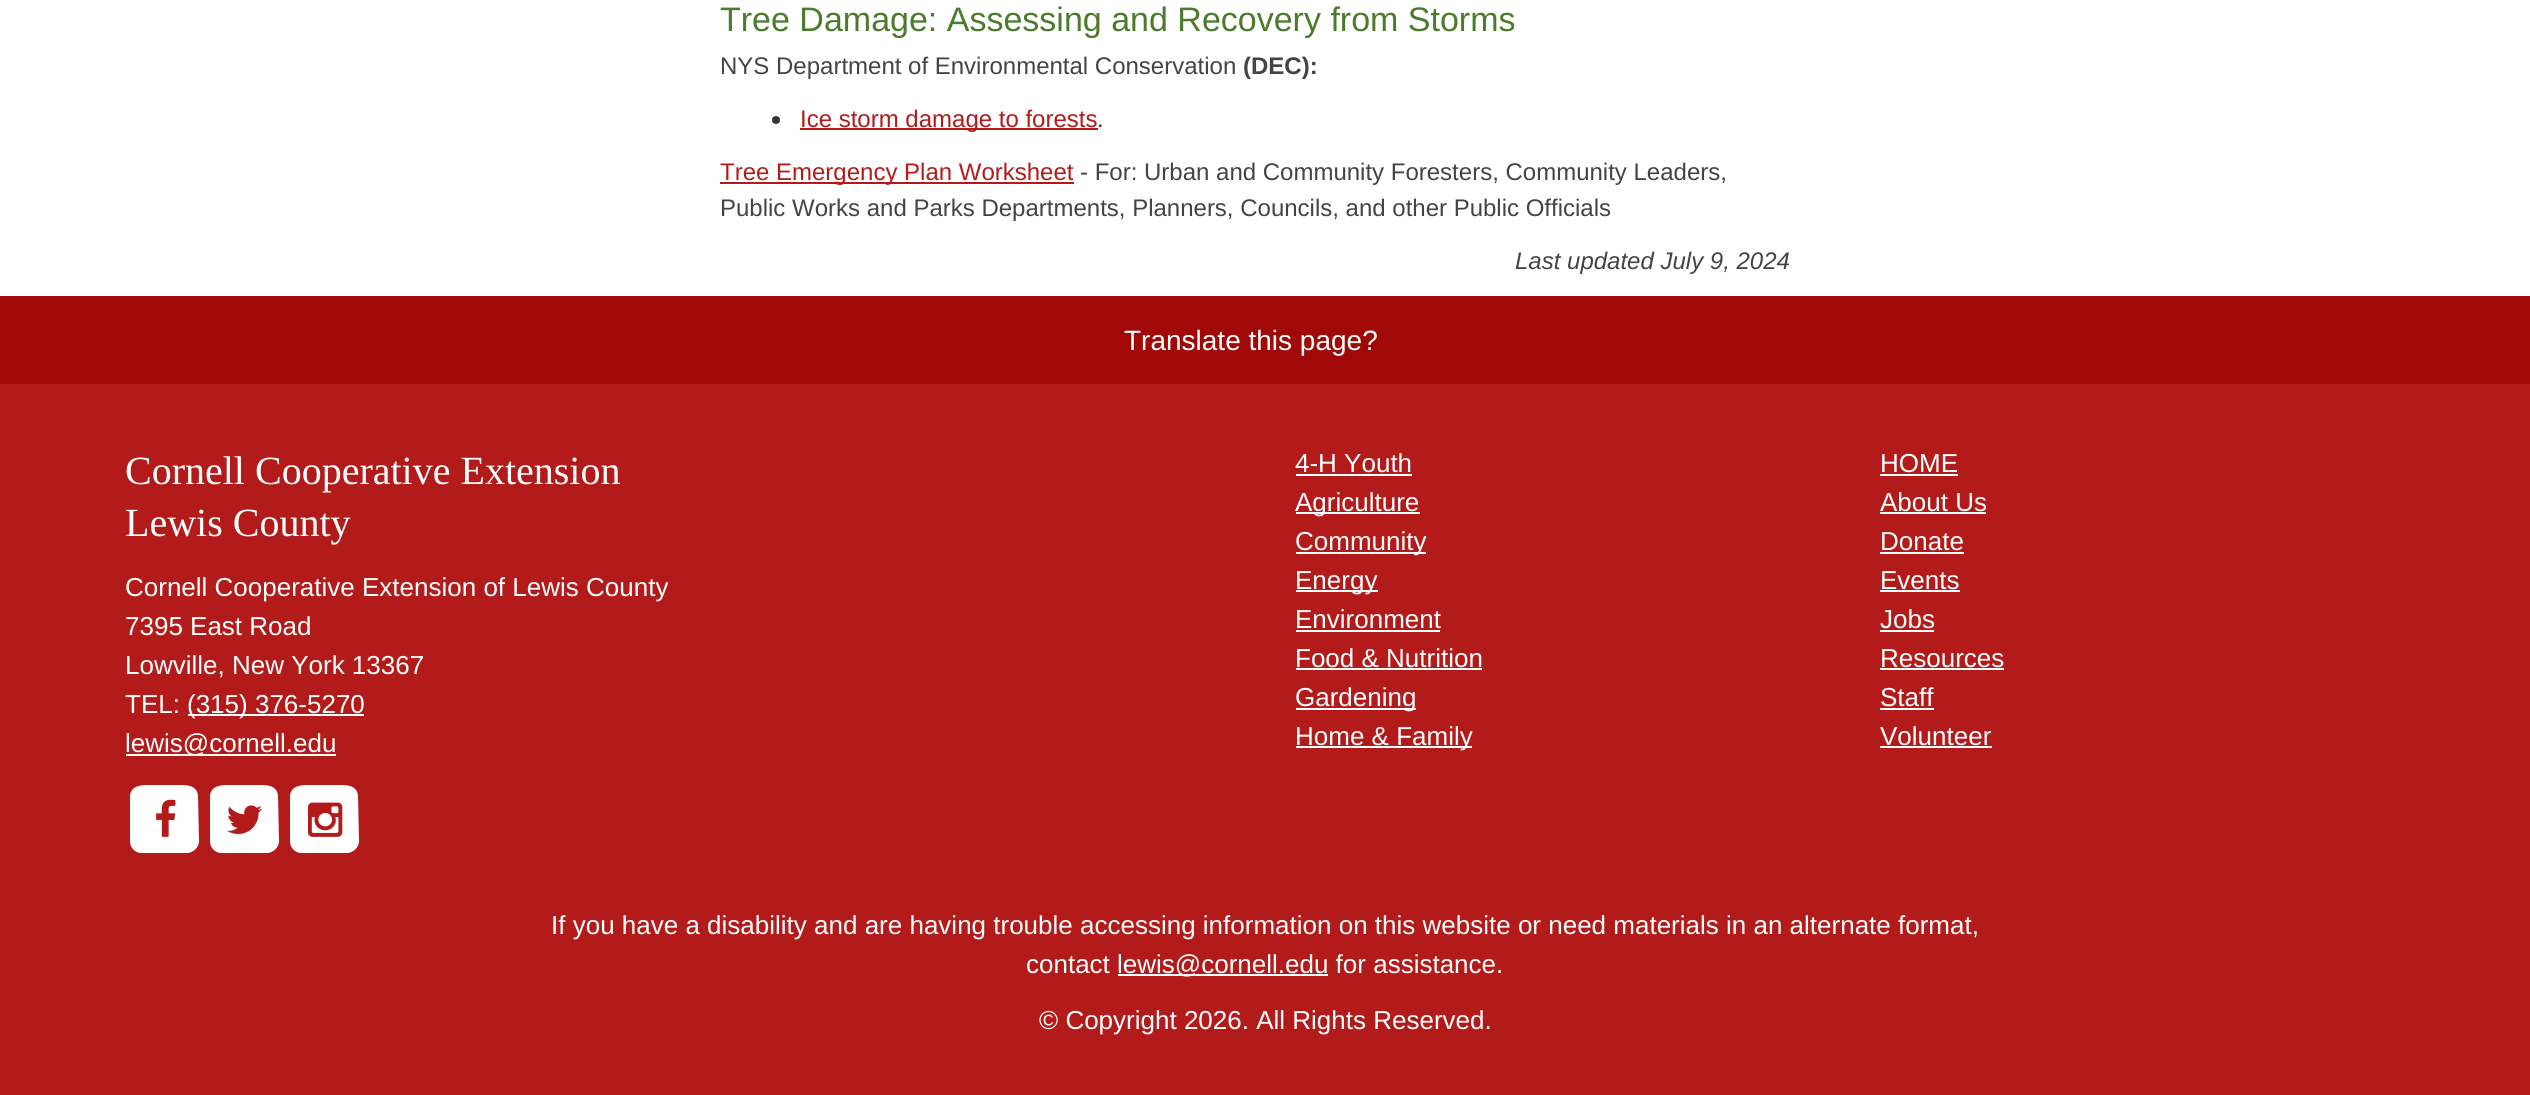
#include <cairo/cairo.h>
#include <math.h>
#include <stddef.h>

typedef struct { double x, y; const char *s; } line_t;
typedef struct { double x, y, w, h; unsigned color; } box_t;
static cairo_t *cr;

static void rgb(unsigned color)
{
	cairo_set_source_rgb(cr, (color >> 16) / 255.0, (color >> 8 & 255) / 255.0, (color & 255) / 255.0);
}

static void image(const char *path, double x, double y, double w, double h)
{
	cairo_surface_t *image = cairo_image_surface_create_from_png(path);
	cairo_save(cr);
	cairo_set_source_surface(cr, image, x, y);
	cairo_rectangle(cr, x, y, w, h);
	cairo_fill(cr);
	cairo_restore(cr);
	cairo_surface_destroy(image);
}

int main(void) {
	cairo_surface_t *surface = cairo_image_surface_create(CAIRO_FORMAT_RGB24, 2530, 1095);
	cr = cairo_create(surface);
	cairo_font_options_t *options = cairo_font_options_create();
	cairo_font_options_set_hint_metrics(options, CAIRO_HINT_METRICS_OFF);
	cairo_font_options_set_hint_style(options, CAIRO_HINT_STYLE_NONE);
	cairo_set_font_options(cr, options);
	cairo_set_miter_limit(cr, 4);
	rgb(0xb31b1b);
	cairo_paint(cr);
	rgb(0xffffff);
	cairo_rectangle(cr, 0, 0, 2530, 296);
	cairo_fill(cr);
	rgb(0x333333);
	cairo_arc(cr, 776, 120, 4, 0, 2 * M_PI);
	cairo_fill(cr);
	{
		static const box_t items[] = {
			{800, 128, 298, 2, 0xb31b1b},
			{720, 182, 354, 2, 0xb31b1b},
			{0, 296, 2530, 88, 0xa10909},
			{188, 714, 176, 2, 0xffffff},
			{126, 754, 210, 2, 0xffffff},
		};
		for (size_t i = 0; i < sizeof items / sizeof *items; i++) {
			rgb(items[i].color);
			cairo_rectangle(cr, items[i].x, items[i].y, items[i].w, items[i].h);
			cairo_fill(cr);
		}
	}
	cairo_new_path(cr);
	cairo_move_to(cr, 130, 841);
	cairo_line_to(cr, 130, 795);
	cairo_curve_to(cr, 132, 785, 142, 785, 150, 785);
	cairo_line_to(cr, 179, 785);
	cairo_curve_to(cr, 187, 785, 196, 785, 198, 795);
	cairo_line_to(cr, 199, 841);
	cairo_curve_to(cr, 199, 847, 194, 852, 188, 853);
	cairo_line_to(cr, 140, 853);
	cairo_curve_to(cr, 134, 852, 130, 847, 130, 841);
	cairo_close_path(cr);
	cairo_fill(cr);
	image("img/1.png", 156, 799, 20, 38);
	cairo_new_path(cr);
	cairo_move_to(cr, 210, 841);
	cairo_line_to(cr, 210, 795);
	cairo_curve_to(cr, 212, 785, 222, 785, 230, 785);
	cairo_line_to(cr, 259, 785);
	cairo_curve_to(cr, 267, 785, 276, 785, 278, 795);
	cairo_line_to(cr, 279, 841);
	cairo_curve_to(cr, 279, 847, 274, 852, 268, 853);
	cairo_line_to(cr, 220, 853);
	cairo_curve_to(cr, 214, 852, 210, 847, 210, 841);
	cairo_close_path(cr);
	cairo_fill(cr);
	image("img/2.png", 227, 805, 35, 29);
	cairo_new_path(cr);
	cairo_move_to(cr, 290, 841);
	cairo_line_to(cr, 290, 795);
	cairo_curve_to(cr, 292, 785, 302, 785, 310, 785);
	cairo_line_to(cr, 339, 785);
	cairo_curve_to(cr, 347, 785, 356, 785, 358, 795);
	cairo_line_to(cr, 359, 841);
	cairo_curve_to(cr, 359, 847, 354, 852, 348, 853);
	cairo_line_to(cr, 300, 853);
	cairo_curve_to(cr, 294, 852, 290, 847, 290, 841);
	cairo_close_path(cr);
	cairo_fill(cr);
	image("img/3.png", 308, 802, 35, 35);
	{
		static const box_t items[] = {
			{1296, 474, 116, 2, 0xffffff},
			{1296, 512, 124, 2, 0xffffff},
			{1296, 552, 130, 2, 0xffffff},
			{1296, 590, 82, 2, 0xffffff},
			{1296, 630, 144, 2, 0xffffff},
			{1296, 668, 186, 2, 0xffffff},
			{1296, 708, 120, 2, 0xffffff},
			{1296, 746, 176, 2, 0xffffff},
			{1880, 474, 78, 2, 0xffffff},
			{1880, 512, 106, 2, 0xffffff},
			{1880, 552, 84, 2, 0xffffff},
			{1880, 590, 80, 2, 0xffffff},
			{1880, 630, 54, 2, 0xffffff},
			{1880, 668, 124, 2, 0xffffff},
			{1880, 708, 54, 2, 0xffffff},
			{1880, 746, 112, 2, 0xffffff},
			{1118, 974, 210, 2, 0xffffff},
		};
		for (size_t i = 0; i < sizeof items / sizeof *items; i++) {
			rgb(items[i].color);
			cairo_rectangle(cr, items[i].x, items[i].y, items[i].w, items[i].h);
			cairo_fill(cr);
		}
	}
	cairo_select_font_face(cr, "Liberation Sans", CAIRO_FONT_SLANT_NORMAL, CAIRO_FONT_WEIGHT_NORMAL);
	cairo_set_font_size(cr, 34);
	rgb(0x4b7b2b);
	cairo_move_to(cr, 720, 31);
	cairo_show_text(cr, "Tree Damage: Assessing and Recovery from Storms");
	cairo_set_font_size(cr, 24);
	rgb(0x444444);
	cairo_move_to(cr, 720, 74);
	cairo_show_text(cr, "NYS Department of Environmental Conservation");
	cairo_select_font_face(cr, "Liberation Sans", CAIRO_FONT_SLANT_NORMAL, CAIRO_FONT_WEIGHT_BOLD);
	cairo_move_to(cr, 1243, 74);
	cairo_show_text(cr, "(DEC):");
	cairo_select_font_face(cr, "Liberation Sans", CAIRO_FONT_SLANT_NORMAL, CAIRO_FONT_WEIGHT_NORMAL);
	rgb(0xb31b1b);
	cairo_move_to(cr, 800, 127);
	cairo_show_text(cr, "Ice storm damage to forests");
	rgb(0x333333);
	cairo_move_to(cr, 1097, 127);
	cairo_show_text(cr, ".");
	rgb(0xb31b1b);
	cairo_move_to(cr, 720, 180);
	cairo_show_text(cr, "Tree Emergency Plan Worksheet");
	rgb(0x444444);
	cairo_move_to(cr, 1080, 180);
	cairo_show_text(cr, "- For: Urban and Community Foresters, Community Leaders,");
	cairo_move_to(cr, 720, 216);
	cairo_show_text(cr, "Public Works and Parks Departments, Planners, Councils, and other Public Officials");
	cairo_select_font_face(cr, "Liberation Sans", CAIRO_FONT_SLANT_ITALIC, CAIRO_FONT_WEIGHT_NORMAL);
	cairo_move_to(cr, 1515, 269);
	cairo_show_text(cr, "Last updated July 9, 2024");
	cairo_select_font_face(cr, "Liberation Sans", CAIRO_FONT_SLANT_NORMAL, CAIRO_FONT_WEIGHT_NORMAL);
	cairo_set_font_size(cr, 28);
	rgb(0xffffff);
	cairo_move_to(cr, 1124, 350);
	cairo_show_text(cr, "Translate this page?");
	cairo_select_font_face(cr, "Liberation Serif", CAIRO_FONT_SLANT_NORMAL, CAIRO_FONT_WEIGHT_NORMAL);
	cairo_set_font_size(cr, 40);
	cairo_move_to(cr, 125, 484);
	cairo_show_text(cr, "Cornell Cooperative Extension");
	cairo_move_to(cr, 125, 536);
	cairo_show_text(cr, "Lewis County");
	cairo_select_font_face(cr, "Liberation Sans", CAIRO_FONT_SLANT_NORMAL, CAIRO_FONT_WEIGHT_NORMAL);
	cairo_set_font_size(cr, 26);
	{
		static const line_t items[] = {
			{125, 596, "Cornell Cooperative Extension of Lewis County"},
			{125, 635, "7395 East Road"},
			{125, 674, "Lowville, New York 13367"},
			{125, 713, "TEL:"},
			{187, 713, "(315) 376-5270"},
			{125, 752, "lewis@cornell.edu"},
			{1295, 472, "4-H Youth"},
			{1295, 511, "Agriculture"},
			{1295, 550, "Community"},
			{1295, 589, "Energy"},
			{1295, 628, "Environment"},
			{1295, 667, "Food & Nutrition"},
			{1295, 706, "Gardening"},
			{1295, 745, "Home & Family"},
			{1880, 472, "HOME"},
			{1880, 511, "About Us"},
			{1880, 550, "Donate"},
			{1880, 589, "Events"},
			{1880, 628, "Jobs"},
			{1880, 667, "Resources"},
			{1880, 706, "Staff"},
			{1880, 745, "Volunteer"},
			{551, 934, "If you have a disability and are having trouble accessing information on this website or need materials in an alternate format,"},
			{1026, 973, "contact"},
			{1117, 973, "lewis@cornell.edu for assistance."},
			{1039, 1029, "© Copyright 2026. All Rights Reserved."},
		};
		for (size_t i = 0; i < sizeof items / sizeof *items; i++) {
			cairo_move_to(cr, items[i].x, items[i].y);
			cairo_show_text(cr, items[i].s);
		}
	}
	cairo_surface_write_to_png(surface, "page.png");
	cairo_font_options_destroy(options);
	cairo_destroy(cr);
	cairo_surface_destroy(surface);
	return 0;
}
